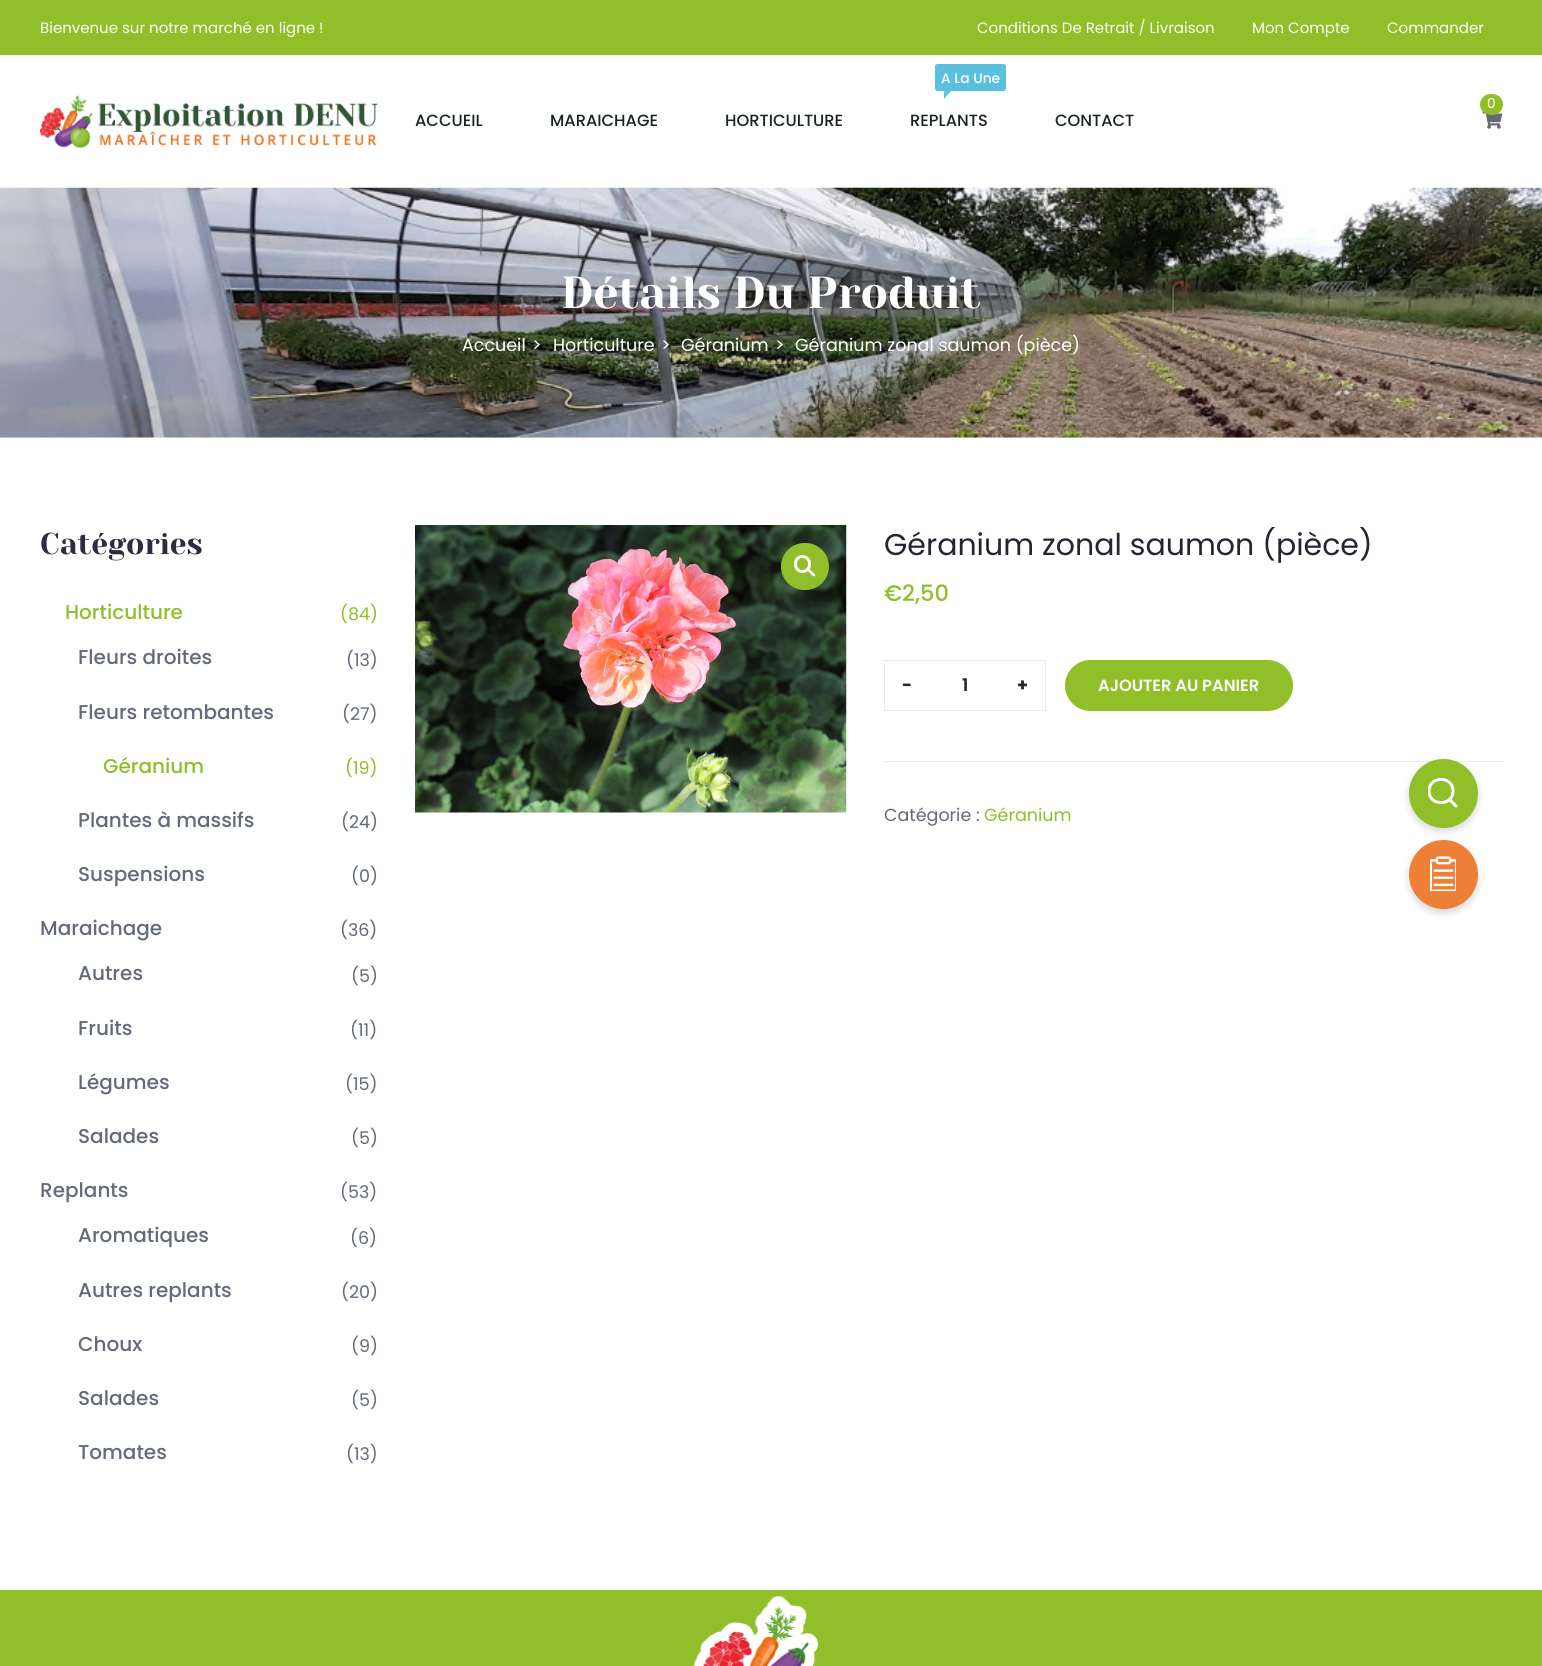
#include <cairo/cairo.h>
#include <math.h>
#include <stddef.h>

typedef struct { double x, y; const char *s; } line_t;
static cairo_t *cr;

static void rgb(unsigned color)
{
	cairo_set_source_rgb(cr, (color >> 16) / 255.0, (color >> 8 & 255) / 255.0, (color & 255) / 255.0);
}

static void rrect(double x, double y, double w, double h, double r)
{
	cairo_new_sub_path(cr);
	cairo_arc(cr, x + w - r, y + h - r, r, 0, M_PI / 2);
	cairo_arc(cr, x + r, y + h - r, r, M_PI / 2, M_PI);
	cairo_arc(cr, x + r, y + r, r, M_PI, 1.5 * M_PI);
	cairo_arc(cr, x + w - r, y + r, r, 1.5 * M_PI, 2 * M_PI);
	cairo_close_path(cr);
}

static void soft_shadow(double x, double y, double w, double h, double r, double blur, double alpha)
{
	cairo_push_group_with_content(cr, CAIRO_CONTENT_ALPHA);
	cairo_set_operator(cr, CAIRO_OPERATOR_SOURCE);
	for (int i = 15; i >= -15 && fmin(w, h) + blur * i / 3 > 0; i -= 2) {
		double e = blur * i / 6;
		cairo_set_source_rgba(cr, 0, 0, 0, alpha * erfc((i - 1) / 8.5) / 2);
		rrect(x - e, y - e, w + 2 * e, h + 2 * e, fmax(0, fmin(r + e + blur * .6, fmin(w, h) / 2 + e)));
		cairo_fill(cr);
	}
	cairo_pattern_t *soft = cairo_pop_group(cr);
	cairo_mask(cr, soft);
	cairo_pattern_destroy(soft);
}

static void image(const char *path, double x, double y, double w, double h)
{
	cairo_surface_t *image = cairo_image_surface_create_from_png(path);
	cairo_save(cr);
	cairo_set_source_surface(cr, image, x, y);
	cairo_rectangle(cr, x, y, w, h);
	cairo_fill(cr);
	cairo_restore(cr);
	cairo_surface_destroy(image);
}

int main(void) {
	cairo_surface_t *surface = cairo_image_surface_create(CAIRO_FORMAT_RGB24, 1542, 1666);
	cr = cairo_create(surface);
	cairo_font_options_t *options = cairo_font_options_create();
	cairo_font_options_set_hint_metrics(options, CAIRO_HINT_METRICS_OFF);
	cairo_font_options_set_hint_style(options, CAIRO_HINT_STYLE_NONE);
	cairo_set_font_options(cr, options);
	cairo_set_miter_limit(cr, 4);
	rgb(0xffffff);
	cairo_paint(cr);
	rgb(0x90bf2a);
	cairo_rectangle(cr, 0, 0, 1542, 55);
	cairo_fill(cr);
	image("img/1.png", 40, 95, 338, 53);
	rgb(0x5bc0de);
	rrect(935, 64, 71, 27, 2.5);
	cairo_fill(cr);
	cairo_new_path(cr);
	cairo_move_to(cr, 944, 91);
	cairo_line_to(cr, 951, 91);
	cairo_line_to(cr, 947.5, 95);
	cairo_close_path(cr);
	cairo_fill(cr);
	cairo_new_path(cr);
	cairo_move_to(cr, 944, 99);
	cairo_line_to(cr, 944, 91);
	cairo_line_to(cr, 947.5, 95);
	cairo_close_path(cr);
	cairo_fill(cr);
	image("img/2.png", 1482, 111, 21, 18);
	rgb(0x90bf2a);
	rrect(1480, 94, 23, 21, 10.5);
	cairo_fill(cr);
	rgb(0xf3ffd9);
	cairo_rectangle(cr, 0, 437, 1542, 1);
	cairo_fill(cr);
	image("img/3.png", 0, 187, 1542, 251);
	image("img/4.png", 415, 525, 432, 288);
	rgb(0x90bf2a);
	rrect(781.5, 543.5, 47, 46, 23);
	cairo_fill_preserve(cr);
	cairo_set_line_width(cr, 1);
	cairo_stroke(cr);
	rrect(795.5, 556.5, 14, 15, 7);
	rgb(0xffffff);
	cairo_set_line_width(cr, 3);
	cairo_stroke(cr);
	cairo_new_path(cr);
	cairo_move_to(cr, 807.5, 569);
	cairo_curve_to(cr, 809, 567.5, 811.5, 571, 812, 571.5);
	cairo_curve_to(cr, 813, 572.5, 816, 574.5, 815, 576);
	cairo_curve_to(cr, 813.5, 577.5, 811, 574, 810.5, 573.5);
	cairo_curve_to(cr, 809.5, 572.5, 806.5, 570.5, 807.5, 569);
	cairo_close_path(cr);
	cairo_fill(cr);
	rgb(0xebebeb);
	cairo_rectangle(cr, 884, 761, 619, 1);
	cairo_fill(cr);
	cairo_rectangle(cr, 884.5, 660.5, 161, 50);
	cairo_set_line_width(cr, 1);
	cairo_stroke(cr);
	rgb(0x90bf2a);
	rrect(1066.5, 661.5, 225, 48, 24);
	cairo_fill_preserve(cr);
	cairo_set_line_width(cr, 3);
	cairo_stroke(cr);
	cairo_rectangle(cr, 0, 1590, 1542, 76);
	cairo_fill(cr);
	image("img/5.png", 693, 1596, 126, 70);
	rgb(0x000000);
	soft_shadow(1409, 763, 69, 68, 34, 4, 0.16);
	rgb(0x90bf2a);
	cairo_arc(cr, 1443.5, 793.5, 34.5, 0, 2 * M_PI);
	cairo_fill(cr);
	cairo_save(cr);
	cairo_rectangle(cr, 1428, 778, 31, 30);
	cairo_clip(cr);
	cairo_new_path(cr);
	cairo_move_to(cr, 1453, 791);
	cairo_curve_to(cr, 1453, 806.5, 1429, 806.5, 1429, 791);
	cairo_curve_to(cr, 1429, 775.5, 1453, 775.5, 1453, 791);
	cairo_close_path(cr);
	rgb(0xffffff);
	cairo_set_line_cap(cr, CAIRO_LINE_CAP_ROUND);
	cairo_set_line_join(cr, CAIRO_LINE_JOIN_ROUND);
	cairo_stroke(cr);
	cairo_restore(cr);
	cairo_new_path(cr);
	cairo_move_to(cr, 1456, 806);
	cairo_line_to(cr, 1449.5, 799.5);
	rgb(0xffffff);
	cairo_set_line_cap(cr, CAIRO_LINE_CAP_ROUND);
	cairo_set_line_join(cr, CAIRO_LINE_JOIN_ROUND);
	cairo_stroke(cr);
	rgb(0x000000);
	soft_shadow(1409, 844, 69, 69, 34.5, 4, 0.16);
	rgb(0xee7f37);
	cairo_arc(cr, 1443.5, 874.5, 34.5, 0, 2 * M_PI);
	cairo_fill(cr);
	image("img/6.png", 1430, 856, 26, 35);
	cairo_select_font_face(cr, "Poppins", CAIRO_FONT_SLANT_NORMAL, CAIRO_FONT_WEIGHT_NORMAL);
	cairo_set_font_size(cr, 15);
	rgb(0xffffff);
	{
		static const line_t items[] = {
			{40, 33, "Bienvenue sur notre marché en ligne !"},
			{977, 33, "Conditions De Retrait / Livraison"},
			{1252, 33, "Mon Compte"},
			{1387, 33, "Commander"},
		};
		for (size_t i = 0; i < sizeof items / sizeof *items; i++) {
			cairo_move_to(cr, items[i].x, items[i].y);
			cairo_show_text(cr, items[i].s);
		}
	}
	cairo_select_font_face(cr, "Poppins Medium", CAIRO_FONT_SLANT_NORMAL, CAIRO_FONT_WEIGHT_NORMAL);
	cairo_set_font_size(cr, 16.25);
	rgb(0x1b251f);
	{
		static const line_t items[] = {
			{415, 126, "ACCUEIL"},
			{550, 126, "MARAICHAGE"},
			{725, 126, "HORTICULTURE"},
		};
		for (size_t i = 0; i < sizeof items / sizeof *items; i++) {
			cairo_move_to(cr, items[i].x, items[i].y);
			cairo_show_text(cr, items[i].s);
		}
	}
	cairo_set_font_size(cr, 13.75);
	rgb(0xffffff);
	cairo_move_to(cr, 941, 83);
	cairo_show_text(cr, "A La Une");
	cairo_set_font_size(cr, 16.25);
	rgb(0x1b251f);
	cairo_move_to(cr, 910, 126);
	cairo_show_text(cr, "REPLANTS");
	cairo_move_to(cr, 1055, 126);
	cairo_show_text(cr, "CONTACT");
	cairo_select_font_face(cr, "Poppins", CAIRO_FONT_SLANT_NORMAL, CAIRO_FONT_WEIGHT_NORMAL);
	cairo_set_font_size(cr, 13.75);
	rgb(0xffffff);
	cairo_move_to(cr, 1487, 108);
	cairo_show_text(cr, "0");
	cairo_select_font_face(cr, "Yeseva One", CAIRO_FONT_SLANT_NORMAL, CAIRO_FONT_WEIGHT_NORMAL);
	cairo_set_font_size(cr, 45);
	cairo_move_to(cr, 561, 308);
	cairo_show_text(cr, "Détails Du Produit");
	cairo_select_font_face(cr, "Poppins", CAIRO_FONT_SLANT_NORMAL, CAIRO_FONT_WEIGHT_NORMAL);
	cairo_set_font_size(cr, 17.5);
	{
		static const line_t items[] = {
			{462, 351, "Accueil"},
			{532, 351, ">"},
			{553, 351, "Horticulture"},
			{661, 351, ">"},
			{681, 351, "Géranium"},
			{775, 351, ">"},
			{795, 351, "Géranium zonal saumon (pièce)"},
		};
		for (size_t i = 0; i < sizeof items / sizeof *items; i++) {
			cairo_move_to(cr, items[i].x, items[i].y);
			cairo_show_text(cr, items[i].s);
		}
	}
	cairo_select_font_face(cr, "Yeseva One", CAIRO_FONT_SLANT_NORMAL, CAIRO_FONT_WEIGHT_NORMAL);
	cairo_set_font_size(cr, 30);
	rgb(0x2d2c40);
	cairo_move_to(cr, 40, 554);
	cairo_show_text(cr, "Catégories");
	cairo_select_font_face(cr, "Poppins Medium", CAIRO_FONT_SLANT_NORMAL, CAIRO_FONT_WEIGHT_NORMAL);
	cairo_set_font_size(cr, 20);
	rgb(0x90bf2a);
	cairo_move_to(cr, 65, 619);
	cairo_show_text(cr, "Horticulture");
	cairo_select_font_face(cr, "Poppins", CAIRO_FONT_SLANT_NORMAL, CAIRO_FONT_WEIGHT_NORMAL);
	cairo_set_font_size(cr, 17.5);
	cairo_move_to(cr, 340, 620);
	cairo_show_text(cr, "(84)");
	cairo_select_font_face(cr, "Poppins Medium", CAIRO_FONT_SLANT_NORMAL, CAIRO_FONT_WEIGHT_NORMAL);
	cairo_set_font_size(cr, 20);
	rgb(0x646a7c);
	cairo_move_to(cr, 78, 664);
	cairo_show_text(cr, "Fleurs droites");
	cairo_select_font_face(cr, "Poppins", CAIRO_FONT_SLANT_NORMAL, CAIRO_FONT_WEIGHT_NORMAL);
	cairo_set_font_size(cr, 17.5);
	cairo_move_to(cr, 346, 666);
	cairo_show_text(cr, "(13)");
	cairo_select_font_face(cr, "Poppins Medium", CAIRO_FONT_SLANT_NORMAL, CAIRO_FONT_WEIGHT_NORMAL);
	cairo_set_font_size(cr, 20);
	cairo_move_to(cr, 78, 719);
	cairo_show_text(cr, "Fleurs retombantes");
	cairo_select_font_face(cr, "Poppins", CAIRO_FONT_SLANT_NORMAL, CAIRO_FONT_WEIGHT_NORMAL);
	cairo_set_font_size(cr, 17.5);
	cairo_move_to(cr, 342, 720);
	cairo_show_text(cr, "(27)");
	cairo_select_font_face(cr, "Poppins Medium", CAIRO_FONT_SLANT_NORMAL, CAIRO_FONT_WEIGHT_NORMAL);
	cairo_set_font_size(cr, 20);
	rgb(0x90bf2a);
	cairo_move_to(cr, 103, 773);
	cairo_show_text(cr, "Géranium");
	cairo_select_font_face(cr, "Poppins", CAIRO_FONT_SLANT_NORMAL, CAIRO_FONT_WEIGHT_NORMAL);
	cairo_set_font_size(cr, 17.5);
	cairo_move_to(cr, 345, 774);
	cairo_show_text(cr, "(19)");
	cairo_select_font_face(cr, "Poppins Medium", CAIRO_FONT_SLANT_NORMAL, CAIRO_FONT_WEIGHT_NORMAL);
	cairo_set_font_size(cr, 20);
	rgb(0x646a7c);
	cairo_move_to(cr, 78, 827);
	cairo_show_text(cr, "Plantes à massifs");
	cairo_select_font_face(cr, "Poppins", CAIRO_FONT_SLANT_NORMAL, CAIRO_FONT_WEIGHT_NORMAL);
	cairo_set_font_size(cr, 17.5);
	cairo_move_to(cr, 341, 828);
	cairo_show_text(cr, "(24)");
	cairo_select_font_face(cr, "Poppins Medium", CAIRO_FONT_SLANT_NORMAL, CAIRO_FONT_WEIGHT_NORMAL);
	cairo_set_font_size(cr, 20);
	cairo_move_to(cr, 78, 881);
	cairo_show_text(cr, "Suspensions");
	cairo_select_font_face(cr, "Poppins", CAIRO_FONT_SLANT_NORMAL, CAIRO_FONT_WEIGHT_NORMAL);
	cairo_set_font_size(cr, 17.5);
	cairo_move_to(cr, 351, 882);
	cairo_show_text(cr, "(0)");
	cairo_select_font_face(cr, "Poppins Medium", CAIRO_FONT_SLANT_NORMAL, CAIRO_FONT_WEIGHT_NORMAL);
	cairo_set_font_size(cr, 20);
	cairo_move_to(cr, 40, 935);
	cairo_show_text(cr, "Maraichage");
	cairo_select_font_face(cr, "Poppins", CAIRO_FONT_SLANT_NORMAL, CAIRO_FONT_WEIGHT_NORMAL);
	cairo_set_font_size(cr, 17.5);
	cairo_move_to(cr, 340, 936);
	cairo_show_text(cr, "(36)");
	cairo_select_font_face(cr, "Poppins Medium", CAIRO_FONT_SLANT_NORMAL, CAIRO_FONT_WEIGHT_NORMAL);
	cairo_set_font_size(cr, 20);
	cairo_move_to(cr, 78, 980);
	cairo_show_text(cr, "Autres");
	cairo_select_font_face(cr, "Poppins", CAIRO_FONT_SLANT_NORMAL, CAIRO_FONT_WEIGHT_NORMAL);
	cairo_set_font_size(cr, 17.5);
	cairo_move_to(cr, 351, 982);
	cairo_show_text(cr, "(5)");
	cairo_select_font_face(cr, "Poppins Medium", CAIRO_FONT_SLANT_NORMAL, CAIRO_FONT_WEIGHT_NORMAL);
	cairo_set_font_size(cr, 20);
	cairo_move_to(cr, 78, 1035);
	cairo_show_text(cr, "Fruits");
	cairo_select_font_face(cr, "Poppins", CAIRO_FONT_SLANT_NORMAL, CAIRO_FONT_WEIGHT_NORMAL);
	cairo_set_font_size(cr, 17.5);
	cairo_move_to(cr, 350, 1036);
	cairo_show_text(cr, "(11)");
	cairo_select_font_face(cr, "Poppins Medium", CAIRO_FONT_SLANT_NORMAL, CAIRO_FONT_WEIGHT_NORMAL);
	cairo_set_font_size(cr, 20);
	cairo_move_to(cr, 78, 1089);
	cairo_show_text(cr, "Légumes");
	cairo_select_font_face(cr, "Poppins", CAIRO_FONT_SLANT_NORMAL, CAIRO_FONT_WEIGHT_NORMAL);
	cairo_set_font_size(cr, 17.5);
	cairo_move_to(cr, 345, 1090);
	cairo_show_text(cr, "(15)");
	cairo_select_font_face(cr, "Poppins Medium", CAIRO_FONT_SLANT_NORMAL, CAIRO_FONT_WEIGHT_NORMAL);
	cairo_set_font_size(cr, 20);
	cairo_move_to(cr, 78, 1143);
	cairo_show_text(cr, "Salades");
	cairo_select_font_face(cr, "Poppins", CAIRO_FONT_SLANT_NORMAL, CAIRO_FONT_WEIGHT_NORMAL);
	cairo_set_font_size(cr, 17.5);
	cairo_move_to(cr, 351, 1144);
	cairo_show_text(cr, "(5)");
	cairo_select_font_face(cr, "Poppins Medium", CAIRO_FONT_SLANT_NORMAL, CAIRO_FONT_WEIGHT_NORMAL);
	cairo_set_font_size(cr, 20);
	cairo_move_to(cr, 40, 1197);
	cairo_show_text(cr, "Replants");
	cairo_select_font_face(cr, "Poppins", CAIRO_FONT_SLANT_NORMAL, CAIRO_FONT_WEIGHT_NORMAL);
	cairo_set_font_size(cr, 17.5);
	cairo_move_to(cr, 340, 1198);
	cairo_show_text(cr, "(53)");
	cairo_select_font_face(cr, "Poppins Medium", CAIRO_FONT_SLANT_NORMAL, CAIRO_FONT_WEIGHT_NORMAL);
	cairo_set_font_size(cr, 20);
	cairo_move_to(cr, 78, 1242);
	cairo_show_text(cr, "Aromatiques");
	cairo_select_font_face(cr, "Poppins", CAIRO_FONT_SLANT_NORMAL, CAIRO_FONT_WEIGHT_NORMAL);
	cairo_set_font_size(cr, 17.5);
	cairo_move_to(cr, 350, 1244);
	cairo_show_text(cr, "(6)");
	cairo_select_font_face(cr, "Poppins Medium", CAIRO_FONT_SLANT_NORMAL, CAIRO_FONT_WEIGHT_NORMAL);
	cairo_set_font_size(cr, 20);
	cairo_move_to(cr, 78, 1297);
	cairo_show_text(cr, "Autres replants");
	cairo_select_font_face(cr, "Poppins", CAIRO_FONT_SLANT_NORMAL, CAIRO_FONT_WEIGHT_NORMAL);
	cairo_set_font_size(cr, 17.5);
	cairo_move_to(cr, 341, 1298);
	cairo_show_text(cr, "(20)");
	cairo_select_font_face(cr, "Poppins Medium", CAIRO_FONT_SLANT_NORMAL, CAIRO_FONT_WEIGHT_NORMAL);
	cairo_set_font_size(cr, 20);
	cairo_move_to(cr, 78, 1351);
	cairo_show_text(cr, "Choux");
	cairo_select_font_face(cr, "Poppins", CAIRO_FONT_SLANT_NORMAL, CAIRO_FONT_WEIGHT_NORMAL);
	cairo_set_font_size(cr, 17.5);
	cairo_move_to(cr, 351, 1352);
	cairo_show_text(cr, "(9)");
	cairo_select_font_face(cr, "Poppins Medium", CAIRO_FONT_SLANT_NORMAL, CAIRO_FONT_WEIGHT_NORMAL);
	cairo_set_font_size(cr, 20);
	cairo_move_to(cr, 78, 1405);
	cairo_show_text(cr, "Salades");
	cairo_select_font_face(cr, "Poppins", CAIRO_FONT_SLANT_NORMAL, CAIRO_FONT_WEIGHT_NORMAL);
	cairo_set_font_size(cr, 17.5);
	cairo_move_to(cr, 351, 1406);
	cairo_show_text(cr, "(5)");
	cairo_select_font_face(cr, "Poppins Medium", CAIRO_FONT_SLANT_NORMAL, CAIRO_FONT_WEIGHT_NORMAL);
	cairo_set_font_size(cr, 20);
	cairo_move_to(cr, 78, 1459);
	cairo_show_text(cr, "Tomates");
	cairo_select_font_face(cr, "Poppins", CAIRO_FONT_SLANT_NORMAL, CAIRO_FONT_WEIGHT_NORMAL);
	cairo_set_font_size(cr, 17.5);
	cairo_move_to(cr, 346, 1460);
	cairo_show_text(cr, "(13)");
	cairo_set_font_size(cr, 30);
	rgb(0x232530);
	cairo_move_to(cr, 884, 555);
	cairo_show_text(cr, "Géranium zonal saumon (pièce)");
	cairo_select_font_face(cr, "Poppins Medium", CAIRO_FONT_SLANT_NORMAL, CAIRO_FONT_WEIGHT_NORMAL);
	cairo_set_font_size(cr, 22.5);
	rgb(0x90bf2a);
	cairo_move_to(cr, 884, 601);
	cairo_show_text(cr, "€2,50");
	cairo_select_font_face(cr, "Poppins", CAIRO_FONT_SLANT_NORMAL, CAIRO_FONT_WEIGHT_BOLD);
	cairo_set_font_size(cr, 17.5);
	rgb(0x232530);
	cairo_move_to(cr, 902, 691);
	cairo_show_text(cr, "-");
	cairo_select_font_face(cr, "Poppins SemiBold", CAIRO_FONT_SLANT_NORMAL, CAIRO_FONT_WEIGHT_NORMAL);
	cairo_move_to(cr, 962, 691);
	cairo_show_text(cr, "1");
	cairo_select_font_face(cr, "Poppins", CAIRO_FONT_SLANT_NORMAL, CAIRO_FONT_WEIGHT_BOLD);
	cairo_move_to(cr, 1017, 691);
	cairo_show_text(cr, "+");
	cairo_select_font_face(cr, "Poppins SemiBold", CAIRO_FONT_SLANT_NORMAL, CAIRO_FONT_WEIGHT_NORMAL);
	cairo_set_font_size(cr, 16.25);
	rgb(0xffffff);
	cairo_move_to(cr, 1098, 691);
	cairo_show_text(cr, "AJOUTER AU PANIER");
	cairo_select_font_face(cr, "Poppins", CAIRO_FONT_SLANT_NORMAL, CAIRO_FONT_WEIGHT_NORMAL);
	cairo_set_font_size(cr, 17.5);
	rgb(0x646a7c);
	cairo_move_to(cr, 884, 821);
	cairo_show_text(cr, "Catégorie :");
	rgb(0x90bf2a);
	cairo_move_to(cr, 984, 821);
	cairo_show_text(cr, "Géranium");
	cairo_surface_write_to_png(surface, "page.png");
	cairo_font_options_destroy(options);
	cairo_destroy(cr);
	cairo_surface_destroy(surface);
	return 0;
}
